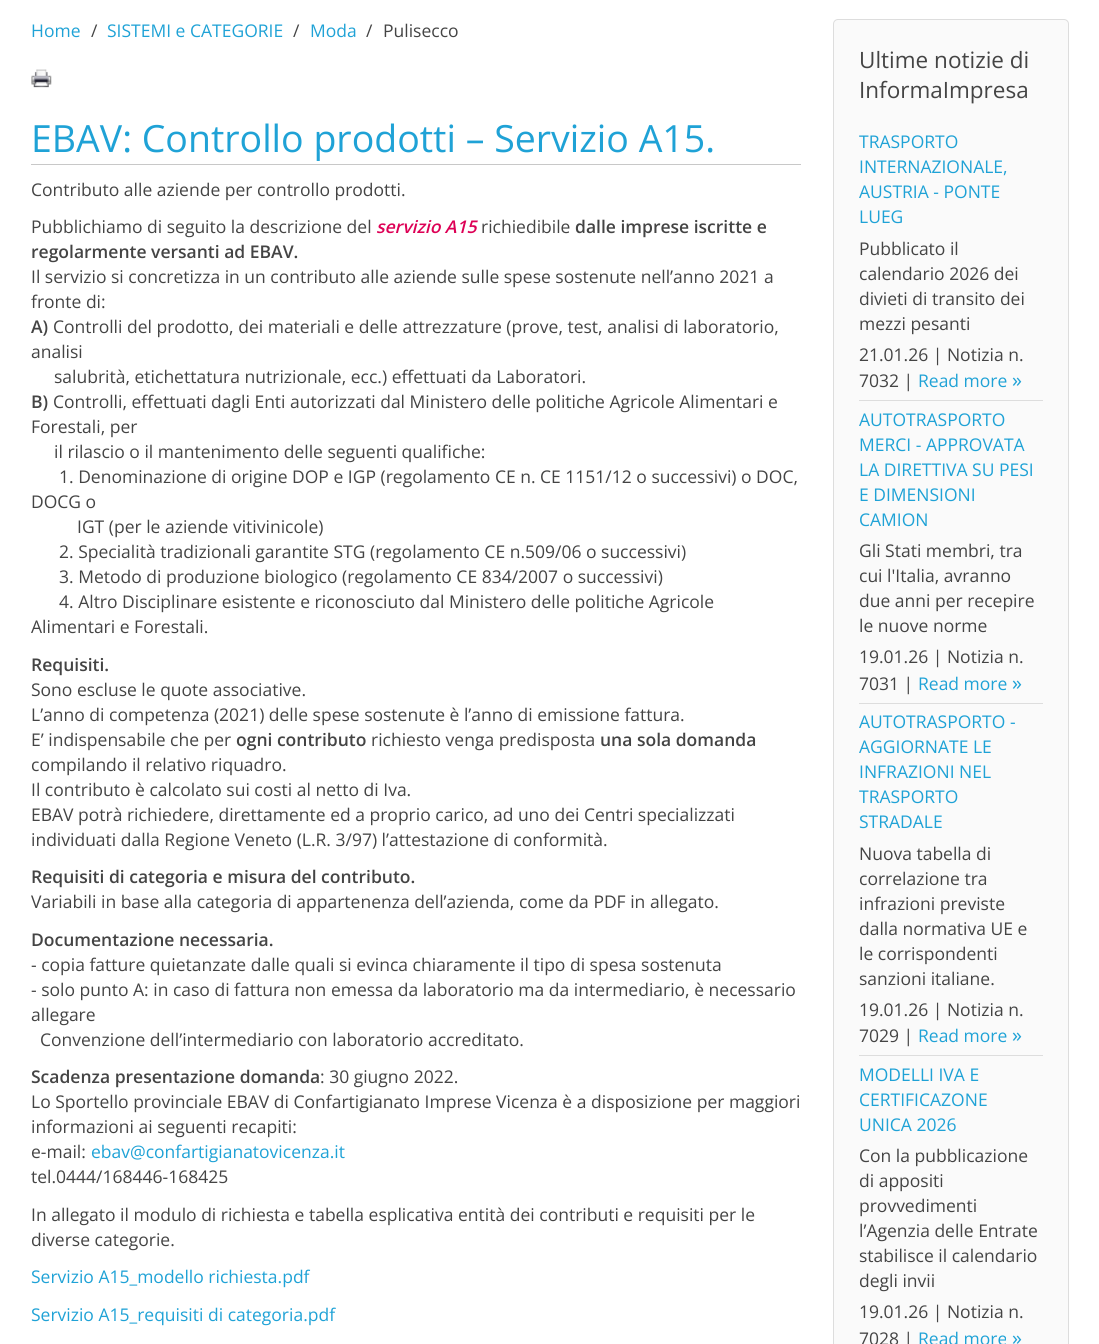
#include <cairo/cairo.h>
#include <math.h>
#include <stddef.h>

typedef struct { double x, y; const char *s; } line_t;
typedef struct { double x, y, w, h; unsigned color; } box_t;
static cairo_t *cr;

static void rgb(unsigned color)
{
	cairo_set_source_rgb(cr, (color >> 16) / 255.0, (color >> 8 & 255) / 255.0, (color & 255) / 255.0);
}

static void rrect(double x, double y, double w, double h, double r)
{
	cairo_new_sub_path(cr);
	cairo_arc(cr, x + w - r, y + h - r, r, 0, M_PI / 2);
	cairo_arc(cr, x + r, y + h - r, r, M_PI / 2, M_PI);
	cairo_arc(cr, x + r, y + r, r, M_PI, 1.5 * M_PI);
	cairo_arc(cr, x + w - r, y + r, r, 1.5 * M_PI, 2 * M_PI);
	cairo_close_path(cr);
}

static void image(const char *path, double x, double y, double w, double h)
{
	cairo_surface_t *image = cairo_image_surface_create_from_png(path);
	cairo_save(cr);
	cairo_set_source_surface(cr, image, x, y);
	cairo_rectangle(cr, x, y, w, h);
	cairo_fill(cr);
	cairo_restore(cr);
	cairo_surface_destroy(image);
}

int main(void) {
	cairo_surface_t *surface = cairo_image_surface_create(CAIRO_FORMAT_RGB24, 1099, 1344);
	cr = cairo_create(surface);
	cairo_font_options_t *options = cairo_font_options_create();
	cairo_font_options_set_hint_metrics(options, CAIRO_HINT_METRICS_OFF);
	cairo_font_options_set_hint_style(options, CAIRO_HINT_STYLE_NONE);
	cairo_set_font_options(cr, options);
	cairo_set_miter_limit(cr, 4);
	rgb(0xffffff);
	cairo_paint(cr);
	image("img/1.png", 31, 69, 21, 19);
	rgb(0xc8c8c8);
	cairo_rectangle(cr, 31, 164, 770, 1);
	cairo_fill(cr);
	rgb(0xfafafa);
	rrect(833.5, 19.5, 235, 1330, 4.5);
	cairo_fill_preserve(cr);
	rgb(0xdddddd);
	cairo_set_line_width(cr, 1);
	cairo_stroke(cr);
	{
		static const box_t items[] = {
			{859, 400, 184, 1, 0xdddddd},
			{859, 703, 184, 1, 0xdddddd},
			{859, 1055, 184, 1, 0xdddddd},
		};
		for (size_t i = 0; i < sizeof items / sizeof *items; i++) {
			rgb(items[i].color);
			cairo_rectangle(cr, items[i].x, items[i].y, items[i].w, items[i].h);
			cairo_fill(cr);
		}
	}
	cairo_select_font_face(cr, "Open Sans", CAIRO_FONT_SLANT_NORMAL, CAIRO_FONT_WEIGHT_NORMAL);
	cairo_set_font_size(cr, 17.5);
	rgb(0x1fa2d6);
	cairo_move_to(cr, 31, 37);
	cairo_show_text(cr, "Home");
	rgb(0x444444);
	cairo_move_to(cr, 91, 37);
	cairo_show_text(cr, "/");
	rgb(0x1fa2d6);
	cairo_move_to(cr, 107, 37);
	cairo_show_text(cr, "SISTEMI e CATEGORIE");
	rgb(0x444444);
	cairo_move_to(cr, 293, 37);
	cairo_show_text(cr, "/");
	rgb(0x1fa2d6);
	cairo_move_to(cr, 310, 37);
	cairo_show_text(cr, "Moda");
	rgb(0x444444);
	cairo_move_to(cr, 366, 37);
	cairo_show_text(cr, "/");
	cairo_move_to(cr, 383, 37);
	cairo_show_text(cr, "Pulisecco");
	cairo_set_font_size(cr, 37.5);
	rgb(0x1fa2d6);
	cairo_move_to(cr, 31, 152);
	cairo_show_text(cr, "EBAV: Controllo prodotti – Servizio A15.");
	cairo_set_font_size(cr, 17.5);
	rgb(0x444444);
	cairo_move_to(cr, 31, 196);
	cairo_show_text(cr, "Contributo alle aziende per controllo prodotti.");
	cairo_move_to(cr, 31, 233);
	cairo_show_text(cr, "Pubblichiamo di seguito la descrizione del");
	cairo_select_font_face(cr, "Open Sans SemiBold", CAIRO_FONT_SLANT_ITALIC, CAIRO_FONT_WEIGHT_NORMAL);
	rgb(0xdd0055);
	cairo_move_to(cr, 376, 233);
	cairo_show_text(cr, "servizio A15");
	cairo_select_font_face(cr, "Open Sans", CAIRO_FONT_SLANT_NORMAL, CAIRO_FONT_WEIGHT_NORMAL);
	rgb(0x444444);
	cairo_move_to(cr, 481, 233);
	cairo_show_text(cr, "richiedibile");
	cairo_select_font_face(cr, "Open Sans SemiBold", CAIRO_FONT_SLANT_NORMAL, CAIRO_FONT_WEIGHT_NORMAL);
	cairo_move_to(cr, 575, 233);
	cairo_show_text(cr, "dalle imprese iscritte e");
	cairo_move_to(cr, 31, 258);
	cairo_show_text(cr, "regolarmente versanti ad EBAV.");
	cairo_select_font_face(cr, "Open Sans", CAIRO_FONT_SLANT_NORMAL, CAIRO_FONT_WEIGHT_NORMAL);
	cairo_move_to(cr, 31, 283);
	cairo_show_text(cr, "Il servizio si concretizza in un contributo alle aziende sulle spese sostenute nell’anno 2021 a");
	cairo_move_to(cr, 31, 308);
	cairo_show_text(cr, "fronte di:");
	cairo_select_font_face(cr, "Open Sans SemiBold", CAIRO_FONT_SLANT_NORMAL, CAIRO_FONT_WEIGHT_NORMAL);
	cairo_move_to(cr, 31, 333);
	cairo_show_text(cr, "A)");
	cairo_select_font_face(cr, "Open Sans", CAIRO_FONT_SLANT_NORMAL, CAIRO_FONT_WEIGHT_NORMAL);
	{
		static const line_t items[] = {
			{53, 333, "Controlli del prodotto, dei materiali e delle attrezzature (prove, test, analisi di laboratorio,"},
			{31, 358, "analisi"},
			{54, 383, "salubrità, etichettatura nutrizionale, ecc.) effettuati da Laboratori."},
		};
		for (size_t i = 0; i < sizeof items / sizeof *items; i++) {
			cairo_move_to(cr, items[i].x, items[i].y);
			cairo_show_text(cr, items[i].s);
		}
	}
	cairo_select_font_face(cr, "Open Sans SemiBold", CAIRO_FONT_SLANT_NORMAL, CAIRO_FONT_WEIGHT_NORMAL);
	cairo_move_to(cr, 31, 408);
	cairo_show_text(cr, "B)");
	cairo_select_font_face(cr, "Open Sans", CAIRO_FONT_SLANT_NORMAL, CAIRO_FONT_WEIGHT_NORMAL);
	{
		static const line_t items[] = {
			{53, 408, "Controlli, effettuati dagli Enti autorizzati dal Ministero delle politiche Agricole Alimentari e"},
			{31, 433, "Forestali, per"},
			{54, 458, "il rilascio o il mantenimento delle seguenti qualifiche:"},
			{59, 483, "1. Denominazione di origine DOP e IGP (regolamento CE n. CE 1151/12 o successivi) o DOC,"},
			{31, 508, "DOCG o"},
			{77, 533, "IGT (per le aziende vitivinicole)"},
			{59, 558, "2. Specialità tradizionali garantite STG (regolamento CE n.509/06 o successivi)"},
			{59, 583, "3. Metodo di produzione biologico (regolamento CE 834/2007 o successivi)"},
			{59, 608, "4. Altro Disciplinare esistente e riconosciuto dal Ministero delle politiche Agricole"},
			{31, 633, "Alimentari e Forestali."},
		};
		for (size_t i = 0; i < sizeof items / sizeof *items; i++) {
			cairo_move_to(cr, items[i].x, items[i].y);
			cairo_show_text(cr, items[i].s);
		}
	}
	cairo_select_font_face(cr, "Open Sans SemiBold", CAIRO_FONT_SLANT_NORMAL, CAIRO_FONT_WEIGHT_NORMAL);
	cairo_move_to(cr, 31, 671);
	cairo_show_text(cr, "Requisiti.");
	cairo_select_font_face(cr, "Open Sans", CAIRO_FONT_SLANT_NORMAL, CAIRO_FONT_WEIGHT_NORMAL);
	{
		static const line_t items[] = {
			{31, 696, "Sono escluse le quote associative."},
			{31, 721, "L’anno di competenza (2021) delle spese sostenute è l’anno di emissione fattura."},
			{31, 746, "E’ indispensabile che per"},
		};
		for (size_t i = 0; i < sizeof items / sizeof *items; i++) {
			cairo_move_to(cr, items[i].x, items[i].y);
			cairo_show_text(cr, items[i].s);
		}
	}
	cairo_select_font_face(cr, "Open Sans SemiBold", CAIRO_FONT_SLANT_NORMAL, CAIRO_FONT_WEIGHT_NORMAL);
	cairo_move_to(cr, 236, 746);
	cairo_show_text(cr, "ogni contributo");
	cairo_select_font_face(cr, "Open Sans", CAIRO_FONT_SLANT_NORMAL, CAIRO_FONT_WEIGHT_NORMAL);
	cairo_move_to(cr, 371, 746);
	cairo_show_text(cr, "richiesto venga predisposta");
	cairo_select_font_face(cr, "Open Sans SemiBold", CAIRO_FONT_SLANT_NORMAL, CAIRO_FONT_WEIGHT_NORMAL);
	cairo_move_to(cr, 600, 746);
	cairo_show_text(cr, "una sola domanda");
	cairo_select_font_face(cr, "Open Sans", CAIRO_FONT_SLANT_NORMAL, CAIRO_FONT_WEIGHT_NORMAL);
	{
		static const line_t items[] = {
			{31, 771, "compilando il relativo riquadro."},
			{31, 796, "Il contributo è calcolato sui costi al netto di Iva."},
			{31, 821, "EBAV potrà richiedere, direttamente ed a proprio carico, ad uno dei Centri specializzati"},
			{31, 846, "individuati dalla Regione Veneto (L.R. 3/97) l’attestazione di conformità."},
		};
		for (size_t i = 0; i < sizeof items / sizeof *items; i++) {
			cairo_move_to(cr, items[i].x, items[i].y);
			cairo_show_text(cr, items[i].s);
		}
	}
	cairo_select_font_face(cr, "Open Sans SemiBold", CAIRO_FONT_SLANT_NORMAL, CAIRO_FONT_WEIGHT_NORMAL);
	cairo_move_to(cr, 31, 883);
	cairo_show_text(cr, "Requisiti di categoria e misura del contributo.");
	cairo_select_font_face(cr, "Open Sans", CAIRO_FONT_SLANT_NORMAL, CAIRO_FONT_WEIGHT_NORMAL);
	cairo_move_to(cr, 31, 908);
	cairo_show_text(cr, "Variabili in base alla categoria di appartenenza dell’azienda, come da PDF in allegato.");
	cairo_select_font_face(cr, "Open Sans SemiBold", CAIRO_FONT_SLANT_NORMAL, CAIRO_FONT_WEIGHT_NORMAL);
	cairo_move_to(cr, 31, 946);
	cairo_show_text(cr, "Documentazione necessaria.");
	cairo_select_font_face(cr, "Open Sans", CAIRO_FONT_SLANT_NORMAL, CAIRO_FONT_WEIGHT_NORMAL);
	{
		static const line_t items[] = {
			{31, 971, "- copia fatture quietanzate dalle quali si evinca chiaramente il tipo di spesa sostenuta"},
			{31, 996, "- solo punto A: in caso di fattura non emessa da laboratorio ma da intermediario, è necessario"},
			{31, 1021, "allegare"},
			{40, 1046, "Convenzione dell’intermediario con laboratorio accreditato."},
		};
		for (size_t i = 0; i < sizeof items / sizeof *items; i++) {
			cairo_move_to(cr, items[i].x, items[i].y);
			cairo_show_text(cr, items[i].s);
		}
	}
	cairo_select_font_face(cr, "Open Sans SemiBold", CAIRO_FONT_SLANT_NORMAL, CAIRO_FONT_WEIGHT_NORMAL);
	cairo_move_to(cr, 31, 1083);
	cairo_show_text(cr, "Scadenza presentazione domanda");
	cairo_select_font_face(cr, "Open Sans", CAIRO_FONT_SLANT_NORMAL, CAIRO_FONT_WEIGHT_NORMAL);
	{
		static const line_t items[] = {
			{320, 1083, ": 30 giugno 2022."},
			{31, 1108, "Lo Sportello provinciale EBAV di Confartigianato Imprese Vicenza è a disposizione per maggiori"},
			{31, 1133, "informazioni ai seguenti recapiti:"},
			{31, 1158, "e-mail:"},
		};
		for (size_t i = 0; i < sizeof items / sizeof *items; i++) {
			cairo_move_to(cr, items[i].x, items[i].y);
			cairo_show_text(cr, items[i].s);
		}
	}
	rgb(0x1fa2d6);
	cairo_move_to(cr, 91, 1158);
	cairo_show_text(cr, "ebav@confartigianatovicenza.it");
	rgb(0x444444);
	{
		static const line_t items[] = {
			{31, 1183, "tel.0444/168446-168425"},
			{31, 1221, "In allegato il modulo di richiesta e tabella esplicativa entità dei contributi e requisiti per le"},
			{31, 1246, "diverse categorie."},
		};
		for (size_t i = 0; i < sizeof items / sizeof *items; i++) {
			cairo_move_to(cr, items[i].x, items[i].y);
			cairo_show_text(cr, items[i].s);
		}
	}
	rgb(0x1fa2d6);
	cairo_move_to(cr, 31, 1283);
	cairo_show_text(cr, "Servizio A15_modello richiesta.pdf");
	cairo_move_to(cr, 31, 1321);
	cairo_show_text(cr, "Servizio A15_requisiti di categoria.pdf");
	cairo_set_font_size(cr, 22.5);
	rgb(0x444444);
	cairo_move_to(cr, 859, 68);
	cairo_show_text(cr, "Ultime notizie di");
	cairo_move_to(cr, 859, 98);
	cairo_show_text(cr, "InformaImpresa");
	cairo_set_font_size(cr, 17.5);
	rgb(0x1fa2d6);
	{
		static const line_t items[] = {
			{859, 148, "TRASPORTO"},
			{859, 173, "INTERNAZIONALE,"},
			{859, 198, "AUSTRIA - PONTE"},
			{859, 223, "LUEG"},
		};
		for (size_t i = 0; i < sizeof items / sizeof *items; i++) {
			cairo_move_to(cr, items[i].x, items[i].y);
			cairo_show_text(cr, items[i].s);
		}
	}
	rgb(0x444444);
	{
		static const line_t items[] = {
			{859, 255, "Pubblicato il"},
			{859, 280, "calendario 2026 dei"},
			{859, 305, "divieti di transito dei"},
			{859, 330, "mezzi pesanti"},
			{859, 361, "21.01.26 | Notizia n."},
			{859, 387, "7032 |"},
		};
		for (size_t i = 0; i < sizeof items / sizeof *items; i++) {
			cairo_move_to(cr, items[i].x, items[i].y);
			cairo_show_text(cr, items[i].s);
		}
	}
	rgb(0x1fa2d6);
	cairo_move_to(cr, 918, 387);
	cairo_show_text(cr, "Read more");
	cairo_set_font_size(cr, 20);
	cairo_move_to(cr, 1012, 387);
	cairo_show_text(cr, "»");
	cairo_set_font_size(cr, 17.5);
	{
		static const line_t items[] = {
			{859, 426, "AUTOTRASPORTO"},
			{859, 451, "MERCI - APPROVATA"},
			{859, 476, "LA DIRETTIVA SU PESI"},
			{859, 501, "E DIMENSIONI"},
			{859, 526, "CAMION"},
		};
		for (size_t i = 0; i < sizeof items / sizeof *items; i++) {
			cairo_move_to(cr, items[i].x, items[i].y);
			cairo_show_text(cr, items[i].s);
		}
	}
	rgb(0x444444);
	{
		static const line_t items[] = {
			{859, 557, "Gli Stati membri, tra"},
			{859, 582, "cui l'Italia, avranno"},
			{859, 607, "due anni per recepire"},
			{859, 632, "le nuove norme"},
			{859, 663, "19.01.26 | Notizia n."},
			{859, 690, "7031 |"},
		};
		for (size_t i = 0; i < sizeof items / sizeof *items; i++) {
			cairo_move_to(cr, items[i].x, items[i].y);
			cairo_show_text(cr, items[i].s);
		}
	}
	rgb(0x1fa2d6);
	cairo_move_to(cr, 918, 690);
	cairo_show_text(cr, "Read more");
	cairo_set_font_size(cr, 20);
	cairo_move_to(cr, 1012, 690);
	cairo_show_text(cr, "»");
	cairo_set_font_size(cr, 17.5);
	{
		static const line_t items[] = {
			{859, 728, "AUTOTRASPORTO -"},
			{859, 753, "AGGIORNATE LE"},
			{859, 778, "INFRAZIONI NEL"},
			{859, 803, "TRASPORTO"},
			{859, 828, "STRADALE"},
		};
		for (size_t i = 0; i < sizeof items / sizeof *items; i++) {
			cairo_move_to(cr, items[i].x, items[i].y);
			cairo_show_text(cr, items[i].s);
		}
	}
	rgb(0x444444);
	{
		static const line_t items[] = {
			{859, 860, "Nuova tabella di"},
			{859, 885, "correlazione tra"},
			{859, 910, "infrazioni previste"},
			{859, 935, "dalla normativa UE e"},
			{859, 960, "le corrispondenti"},
			{859, 985, "sanzioni italiane."},
			{859, 1016, "19.01.26 | Notizia n."},
			{859, 1042, "7029 |"},
		};
		for (size_t i = 0; i < sizeof items / sizeof *items; i++) {
			cairo_move_to(cr, items[i].x, items[i].y);
			cairo_show_text(cr, items[i].s);
		}
	}
	rgb(0x1fa2d6);
	cairo_move_to(cr, 918, 1042);
	cairo_show_text(cr, "Read more");
	cairo_set_font_size(cr, 20);
	cairo_move_to(cr, 1012, 1042);
	cairo_show_text(cr, "»");
	cairo_set_font_size(cr, 17.5);
	{
		static const line_t items[] = {
			{859, 1081, "MODELLI IVA E"},
			{859, 1106, "CERTIFICAZONE"},
			{859, 1131, "UNICA 2026"},
		};
		for (size_t i = 0; i < sizeof items / sizeof *items; i++) {
			cairo_move_to(cr, items[i].x, items[i].y);
			cairo_show_text(cr, items[i].s);
		}
	}
	rgb(0x444444);
	{
		static const line_t items[] = {
			{859, 1162, "Con la pubblicazione"},
			{859, 1187, "di appositi"},
			{859, 1212, "provvedimenti"},
			{859, 1237, "l’Agenzia delle Entrate"},
			{859, 1262, "stabilisce il calendario"},
			{859, 1287, "degli invii"},
			{859, 1318, "19.01.26 | Notizia n."},
			{859, 1345, "7028 |"},
		};
		for (size_t i = 0; i < sizeof items / sizeof *items; i++) {
			cairo_move_to(cr, items[i].x, items[i].y);
			cairo_show_text(cr, items[i].s);
		}
	}
	rgb(0x1fa2d6);
	cairo_move_to(cr, 918, 1345);
	cairo_show_text(cr, "Read more");
	cairo_set_font_size(cr, 20);
	cairo_move_to(cr, 1012, 1345);
	cairo_show_text(cr, "»");
	cairo_surface_write_to_png(surface, "page.png");
	cairo_font_options_destroy(options);
	cairo_destroy(cr);
	cairo_surface_destroy(surface);
	return 0;
}
